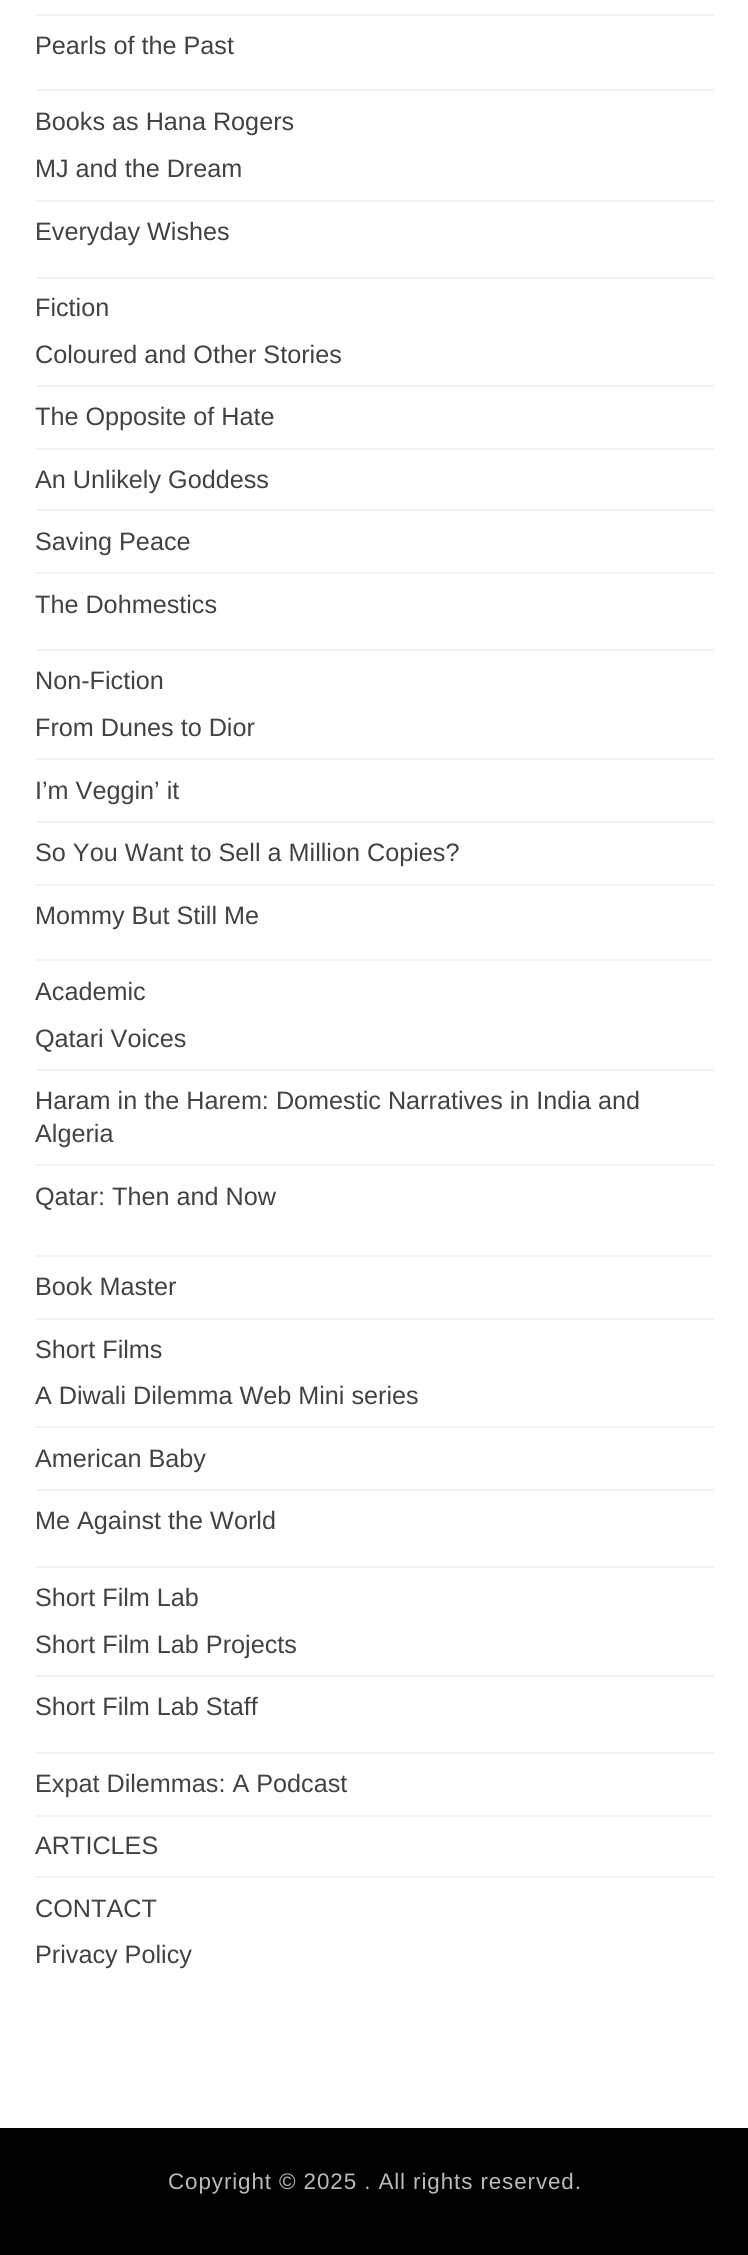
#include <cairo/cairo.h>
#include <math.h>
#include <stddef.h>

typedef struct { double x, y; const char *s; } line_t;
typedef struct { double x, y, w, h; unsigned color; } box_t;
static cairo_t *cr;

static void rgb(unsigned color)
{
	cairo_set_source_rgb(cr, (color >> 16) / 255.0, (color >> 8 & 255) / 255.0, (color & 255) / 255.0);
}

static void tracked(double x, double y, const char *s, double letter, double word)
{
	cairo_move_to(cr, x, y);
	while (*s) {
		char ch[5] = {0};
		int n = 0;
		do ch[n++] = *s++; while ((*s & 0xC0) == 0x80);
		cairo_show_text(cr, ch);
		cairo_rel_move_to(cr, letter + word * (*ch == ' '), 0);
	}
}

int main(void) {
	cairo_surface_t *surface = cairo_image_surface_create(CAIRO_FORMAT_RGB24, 748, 2255);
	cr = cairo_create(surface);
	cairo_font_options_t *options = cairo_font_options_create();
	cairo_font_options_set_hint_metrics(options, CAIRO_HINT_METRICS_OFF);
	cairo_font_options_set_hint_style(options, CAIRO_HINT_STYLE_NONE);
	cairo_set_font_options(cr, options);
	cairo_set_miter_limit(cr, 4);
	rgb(0xffffff);
	cairo_paint(cr);
	{
		static const box_t items[] = {
			{35, 1255, 679, 2, 0xf2f2f2},
			{35, 89, 679, 2, 0xf2f2f2},
			{35, 14, 679, 2, 0xf2f2f2},
			{35, 277, 679, 2, 0xf2f2f2},
			{35, 200, 679, 2, 0xf2f2f2},
			{35, 649, 679, 2, 0xf2f2f2},
			{35, 385, 679, 2, 0xf2f2f2},
			{35, 448, 679, 2, 0xf2f2f2},
			{35, 509, 679, 2, 0xf2f2f2},
			{35, 572, 679, 2, 0xf2f2f2},
			{35, 959, 679, 2, 0xf2f2f2},
			{35, 758, 679, 2, 0xf2f2f2},
			{35, 821, 679, 2, 0xf2f2f2},
			{35, 884, 679, 2, 0xf2f2f2},
			{35, 1069, 679, 2, 0xf2f2f2},
			{35, 1164, 679, 2, 0xf2f2f2},
			{35, 1318, 679, 2, 0xf2f2f2},
			{35, 1566, 679, 2, 0xf2f2f2},
			{35, 1426, 679, 2, 0xf2f2f2},
			{35, 1489, 679, 2, 0xf2f2f2},
			{35, 1752, 679, 2, 0xf2f2f2},
			{35, 1675, 679, 2, 0xf2f2f2},
			{35, 1815, 679, 2, 0xf2f2f2},
			{35, 1876, 679, 2, 0xf2f2f2},
			{0, 2128, 748, 127, 0x000000},
		};
		for (size_t i = 0; i < sizeof items / sizeof *items; i++) {
			rgb(items[i].color);
			cairo_rectangle(cr, items[i].x, items[i].y, items[i].w, items[i].h);
			cairo_fill(cr);
		}
	}
	cairo_select_font_face(cr, "Liberation Sans", CAIRO_FONT_SLANT_NORMAL, CAIRO_FONT_WEIGHT_NORMAL);
	cairo_set_font_size(cr, 25.2);
	rgb(0x424242);
	{
		static const line_t items[] = {
			{35, 54, "Pearls of the Past"},
			{35, 130, "Books as Hana Rogers"},
			{35, 177, "MJ and the Dream"},
			{35, 240, "Everyday Wishes"},
			{35, 316, "Fiction"},
			{35, 363, "Coloured and Other Stories"},
			{35, 425, "The Opposite of Hate"},
			{35, 488, "An Unlikely Goddess"},
			{35, 550, "Saving Peace"},
			{35, 613, "The Dohmestics"},
			{35, 689, "Non-Fiction"},
			{35, 736, "From Dunes to Dior"},
			{35, 799, "I’m Veggin’ it"},
			{35, 861, "So You Want to Sell a Million Copies?"},
			{35, 924, "Mommy But Still Me"},
			{35, 1000, "Academic"},
			{35, 1047, "Qatari Voices"},
			{35, 1109, "Haram in the Harem: Domestic Narratives in India and"},
			{35, 1142, "Algeria"},
			{35, 1205, "Qatar: Then and Now"},
			{35, 1295, "Book Master"},
			{35, 1358, "Short Films"},
			{35, 1404, "A Diwali Dilemma Web Mini series"},
			{35, 1467, "American Baby"},
			{35, 1529, "Me Against the World"},
			{35, 1606, "Short Film Lab"},
			{35, 1653, "Short Film Lab Projects"},
			{35, 1715, "Short Film Lab Staff"},
			{35, 1792, "Expat Dilemmas: A Podcast"},
			{35, 1854, "ARTICLES"},
			{35, 1917, "CONTACT"},
			{35, 1963, "Privacy Policy"},
		};
		for (size_t i = 0; i < sizeof items / sizeof *items; i++) {
			cairo_move_to(cr, items[i].x, items[i].y);
			cairo_show_text(cr, items[i].s);
		}
	}
	cairo_set_font_size(cr, 22.4);
	rgb(0xbbbbbb);
	tracked(168, 2189, "Copyright © 2025 . All rights reserved.", 0.9, 0);
	cairo_surface_write_to_png(surface, "page.png");
	cairo_font_options_destroy(options);
	cairo_destroy(cr);
	cairo_surface_destroy(surface);
	return 0;
}
